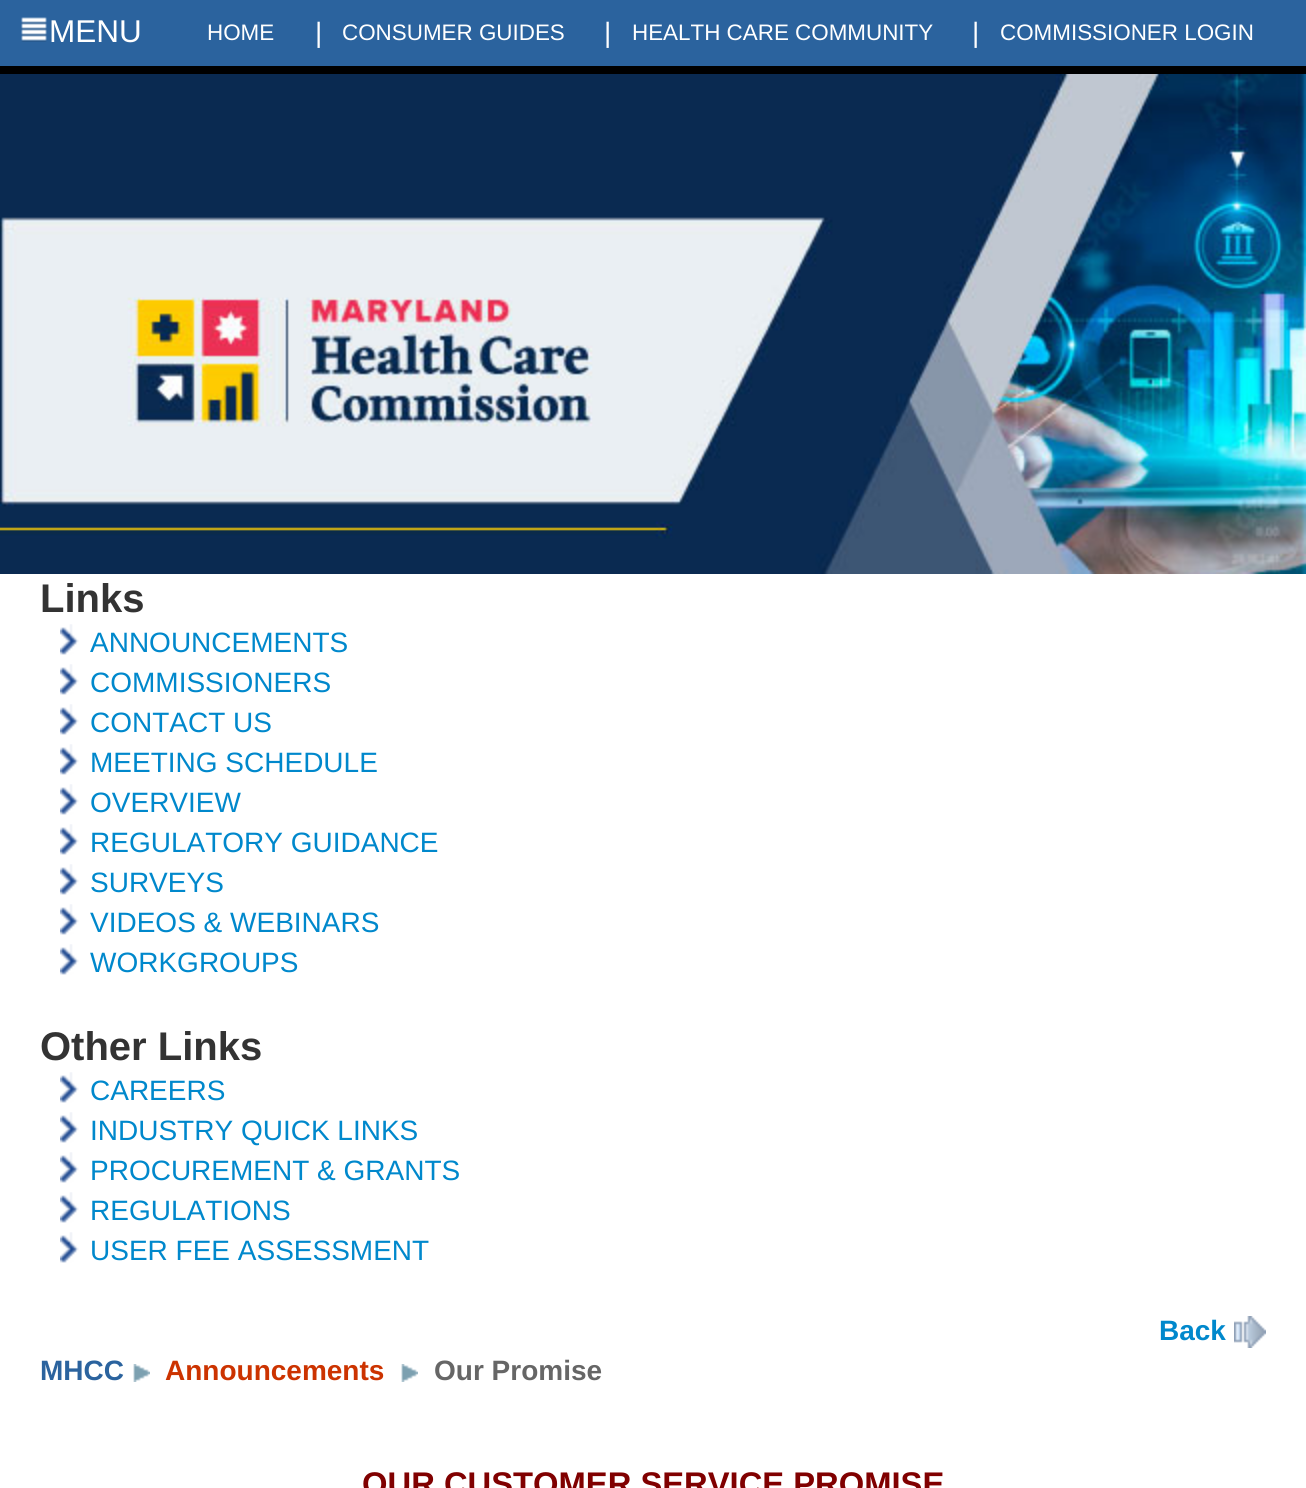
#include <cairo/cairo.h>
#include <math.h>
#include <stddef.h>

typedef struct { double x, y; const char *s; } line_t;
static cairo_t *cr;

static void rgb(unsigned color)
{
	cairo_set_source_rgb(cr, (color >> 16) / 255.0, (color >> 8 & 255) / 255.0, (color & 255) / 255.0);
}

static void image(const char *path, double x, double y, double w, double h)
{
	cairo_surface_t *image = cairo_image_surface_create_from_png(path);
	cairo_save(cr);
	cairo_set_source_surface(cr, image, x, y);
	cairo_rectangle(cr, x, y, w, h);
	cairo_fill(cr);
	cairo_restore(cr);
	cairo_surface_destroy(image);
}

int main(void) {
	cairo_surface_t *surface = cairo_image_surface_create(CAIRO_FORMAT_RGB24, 1306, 1488);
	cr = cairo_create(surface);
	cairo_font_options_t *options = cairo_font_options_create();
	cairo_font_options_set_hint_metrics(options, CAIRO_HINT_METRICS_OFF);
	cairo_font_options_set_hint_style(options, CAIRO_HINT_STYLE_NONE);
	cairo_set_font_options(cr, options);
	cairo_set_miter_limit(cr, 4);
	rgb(0xffffff);
	cairo_paint(cr);
	rgb(0x2b639e);
	cairo_rectangle(cr, 0, 0, 1306, 66);
	cairo_fill(cr);
	rgb(0x000000);
	cairo_rectangle(cr, 0, 66, 1306, 8);
	cairo_fill(cr);
	image("img/1.png", 21, 17, 26, 25);
	image("img/2.png", 0, 74, 1306, 500);
	image("img/3.png", 60, 624, 19, 31);
	image("img/3.png", 60, 664, 19, 31);
	image("img/3.png", 60, 704, 19, 31);
	image("img/3.png", 60, 744, 19, 31);
	image("img/3.png", 60, 784, 19, 31);
	image("img/3.png", 60, 824, 19, 31);
	image("img/3.png", 60, 864, 19, 31);
	image("img/3.png", 60, 904, 19, 31);
	image("img/3.png", 60, 944, 19, 31);
	image("img/3.png", 60, 1072, 19, 31);
	image("img/3.png", 60, 1112, 19, 31);
	image("img/3.png", 60, 1152, 19, 31);
	image("img/3.png", 60, 1192, 19, 31);
	image("img/3.png", 60, 1232, 19, 31);
	image("img/4.png", 1234, 1316, 32, 32);
	image("img/5.png", 133, 1364, 17, 18);
	image("img/5.png", 401, 1364, 17, 18);
	cairo_select_font_face(cr, "Liberation Sans", CAIRO_FONT_SLANT_NORMAL, CAIRO_FONT_WEIGHT_NORMAL);
	cairo_set_font_size(cr, 31.5);
	rgb(0xffffff);
	cairo_move_to(cr, 49, 42);
	cairo_show_text(cr, "MENU");
	cairo_set_font_size(cr, 22.4);
	cairo_move_to(cr, 207, 40);
	cairo_show_text(cr, "HOME");
	cairo_set_font_size(cr, 28);
	cairo_move_to(cr, 315, 42);
	cairo_show_text(cr, "|");
	cairo_set_font_size(cr, 22.4);
	cairo_move_to(cr, 342, 40);
	cairo_show_text(cr, "CONSUMER GUIDES");
	cairo_set_font_size(cr, 28);
	cairo_move_to(cr, 604, 42);
	cairo_show_text(cr, "|");
	cairo_set_font_size(cr, 22.4);
	cairo_move_to(cr, 632, 40);
	cairo_show_text(cr, "HEALTH CARE COMMUNITY");
	cairo_set_font_size(cr, 28);
	cairo_move_to(cr, 972, 42);
	cairo_show_text(cr, "|");
	cairo_set_font_size(cr, 22.4);
	cairo_move_to(cr, 1000, 40);
	cairo_show_text(cr, "COMMISSIONER LOGIN");
	cairo_select_font_face(cr, "Liberation Sans", CAIRO_FONT_SLANT_NORMAL, CAIRO_FONT_WEIGHT_BOLD);
	cairo_set_font_size(cr, 40);
	rgb(0x333333);
	cairo_move_to(cr, 40, 612);
	cairo_show_text(cr, "Links");
	cairo_select_font_face(cr, "Liberation Sans", CAIRO_FONT_SLANT_NORMAL, CAIRO_FONT_WEIGHT_NORMAL);
	cairo_set_font_size(cr, 28);
	rgb(0x0088cc);
	{
		static const line_t items[] = {
			{90, 652, "ANNOUNCEMENTS"},
			{90, 692, "COMMISSIONERS"},
			{90, 732, "CONTACT US"},
			{90, 772, "MEETING SCHEDULE"},
			{90, 812, "OVERVIEW"},
			{90, 852, "REGULATORY GUIDANCE"},
			{90, 892, "SURVEYS"},
			{90, 932, "VIDEOS & WEBINARS"},
			{90, 972, "WORKGROUPS"},
		};
		for (size_t i = 0; i < sizeof items / sizeof *items; i++) {
			cairo_move_to(cr, items[i].x, items[i].y);
			cairo_show_text(cr, items[i].s);
		}
	}
	cairo_select_font_face(cr, "Liberation Sans", CAIRO_FONT_SLANT_NORMAL, CAIRO_FONT_WEIGHT_BOLD);
	cairo_set_font_size(cr, 40);
	rgb(0x333333);
	cairo_move_to(cr, 40, 1060);
	cairo_show_text(cr, "Other Links");
	cairo_select_font_face(cr, "Liberation Sans", CAIRO_FONT_SLANT_NORMAL, CAIRO_FONT_WEIGHT_NORMAL);
	cairo_set_font_size(cr, 28);
	rgb(0x0088cc);
	{
		static const line_t items[] = {
			{90, 1100, "CAREERS"},
			{90, 1140, "INDUSTRY QUICK LINKS"},
			{90, 1180, "PROCUREMENT & GRANTS"},
			{90, 1220, "REGULATIONS"},
			{90, 1260, "USER FEE ASSESSMENT"},
		};
		for (size_t i = 0; i < sizeof items / sizeof *items; i++) {
			cairo_move_to(cr, items[i].x, items[i].y);
			cairo_show_text(cr, items[i].s);
		}
	}
	cairo_select_font_face(cr, "Liberation Sans", CAIRO_FONT_SLANT_NORMAL, CAIRO_FONT_WEIGHT_BOLD);
	cairo_move_to(cr, 1159, 1340);
	cairo_show_text(cr, "Back");
	rgb(0x2b639e);
	cairo_move_to(cr, 40, 1380);
	cairo_show_text(cr, "MHCC");
	rgb(0xcc3300);
	cairo_move_to(cr, 165, 1380);
	cairo_show_text(cr, "Announcements");
	rgb(0x666666);
	cairo_move_to(cr, 434, 1380);
	cairo_show_text(cr, "Our Promise");
	cairo_set_font_size(cr, 32.75);
	rgb(0x800000);
	cairo_move_to(cr, 362, 1495);
	cairo_show_text(cr, "OUR CUSTOMER SERVICE PROMISE");
	cairo_surface_write_to_png(surface, "page.png");
	cairo_font_options_destroy(options);
	cairo_destroy(cr);
	cairo_surface_destroy(surface);
	return 0;
}
